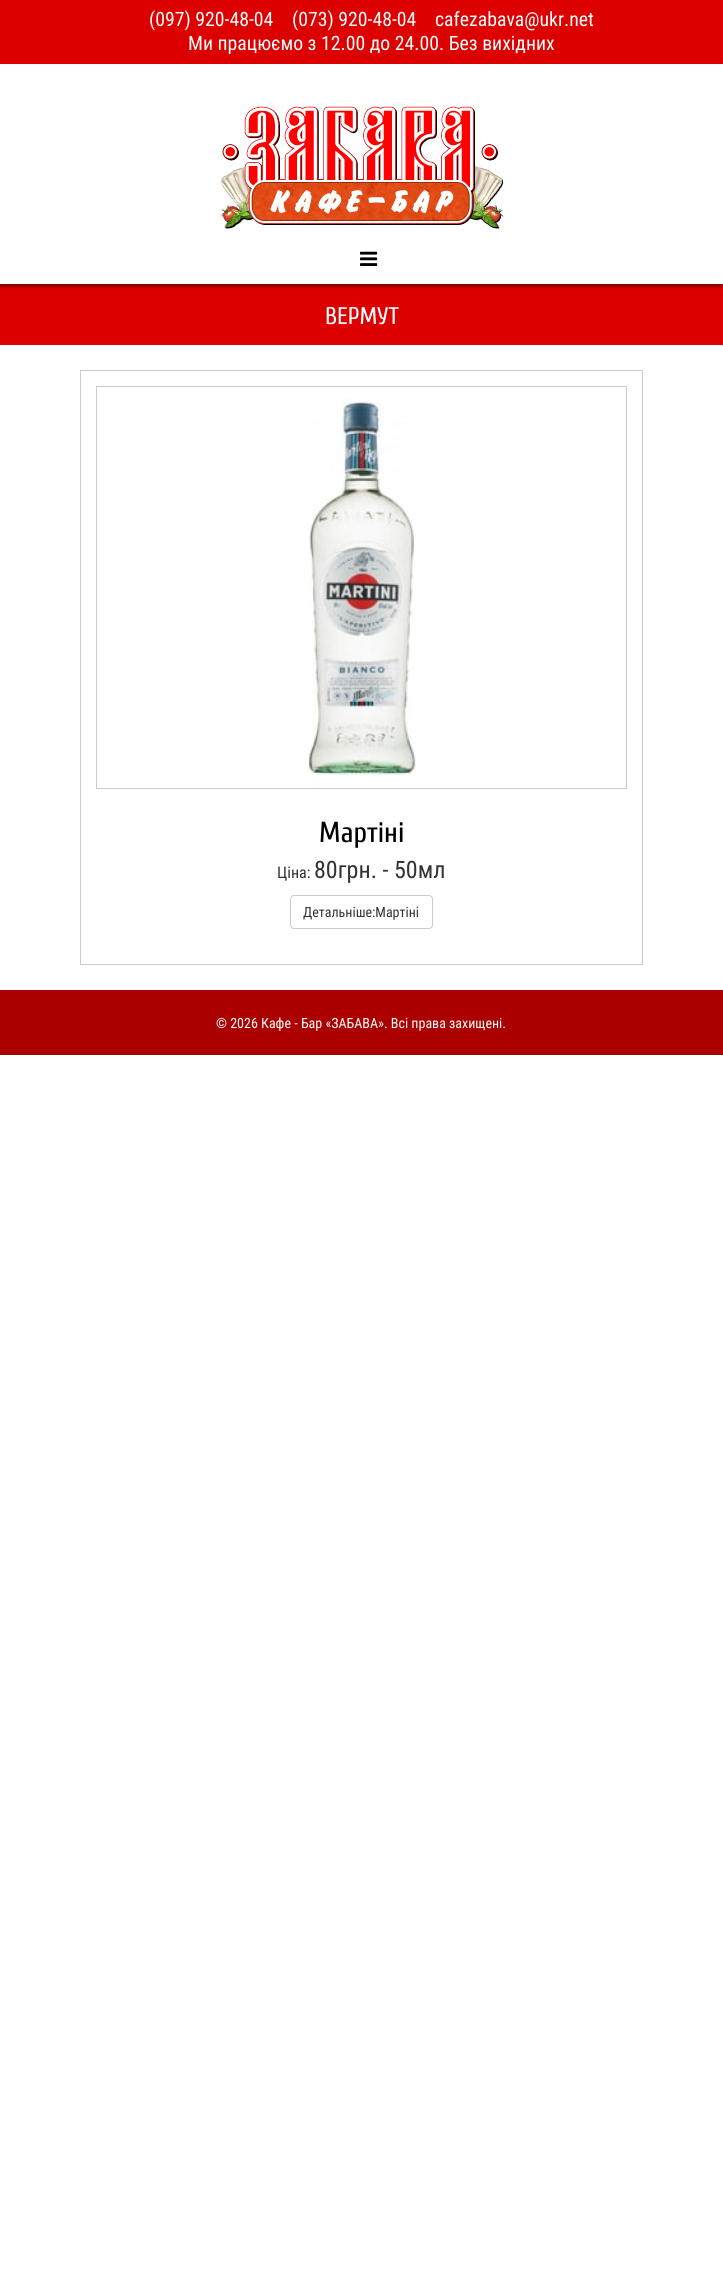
#include <cairo/cairo.h>
#include <math.h>
#include <stddef.h>

typedef struct { double x, y; const char *s; } line_t;
static cairo_t *cr;

static void rgb(unsigned color)
{
	cairo_set_source_rgb(cr, (color >> 16) / 255.0, (color >> 8 & 255) / 255.0, (color & 255) / 255.0);
}

static void rrect(double x, double y, double w, double h, double r)
{
	cairo_new_sub_path(cr);
	cairo_arc(cr, x + w - r, y + h - r, r, 0, M_PI / 2);
	cairo_arc(cr, x + r, y + h - r, r, M_PI / 2, M_PI);
	cairo_arc(cr, x + r, y + r, r, M_PI, 1.5 * M_PI);
	cairo_arc(cr, x + w - r, y + r, r, 1.5 * M_PI, 2 * M_PI);
	cairo_close_path(cr);
}

static void soft_shadow(double x, double y, double w, double h, double r, double blur, double alpha)
{
	cairo_push_group_with_content(cr, CAIRO_CONTENT_ALPHA);
	cairo_set_operator(cr, CAIRO_OPERATOR_SOURCE);
	for (int i = 15; i >= -15 && fmin(w, h) + blur * i / 3 > 0; i -= 2) {
		double e = blur * i / 6;
		cairo_set_source_rgba(cr, 0, 0, 0, alpha * erfc((i - 1) / 8.5) / 2);
		rrect(x - e, y - e, w + 2 * e, h + 2 * e, fmax(0, fmin(r + e + blur * .6, fmin(w, h) / 2 + e)));
		cairo_fill(cr);
	}
	cairo_pattern_t *soft = cairo_pop_group(cr);
	cairo_mask(cr, soft);
	cairo_pattern_destroy(soft);
}

static void image(const char *path, double x, double y, double w, double h)
{
	cairo_surface_t *image = cairo_image_surface_create_from_png(path);
	cairo_save(cr);
	cairo_set_source_surface(cr, image, x, y);
	cairo_rectangle(cr, x, y, w, h);
	cairo_fill(cr);
	cairo_restore(cr);
	cairo_surface_destroy(image);
}

int main(void) {
	cairo_surface_t *surface = cairo_image_surface_create(CAIRO_FORMAT_RGB24, 723, 2288);
	cr = cairo_create(surface);
	cairo_font_options_t *options = cairo_font_options_create();
	cairo_font_options_set_hint_metrics(options, CAIRO_HINT_METRICS_OFF);
	cairo_font_options_set_hint_style(options, CAIRO_HINT_STYLE_NONE);
	cairo_set_font_options(cr, options);
	cairo_set_miter_limit(cr, 4);
	rgb(0xffffff);
	cairo_paint(cr);
	rgb(0xdd0000);
	cairo_rectangle(cr, 0, 0, 723, 64);
	cairo_fill(cr);
	image("img/1.png", 220, 106, 284, 123);
	cairo_rectangle(cr, 0, 284, 723, 61);
	cairo_fill(cr);
	cairo_save(cr);
	cairo_rectangle(cr, 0, 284, 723, 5);
	cairo_clip(cr);
	rgb(0x000000);
	soft_shadow(0, 237, 723, 50, 0, 1.5, 0.4);
	cairo_restore(cr);
	image("img/2.png", 360, 251, 18, 15);
	cairo_rectangle(cr, 80.5, 370.5, 562, 594);
	rgb(0xcccccc);
	cairo_set_line_width(cr, 1);
	cairo_stroke(cr);
	cairo_rectangle(cr, 96.5, 386.5, 530, 402);
	cairo_stroke(cr);
	image("img/3.png", 307, 397, 109, 379);
	rrect(290.5, 895.5, 142, 33, 3.5);
	cairo_stroke(cr);
	rgb(0xaa0000);
	cairo_rectangle(cr, 0, 990, 723, 65);
	cairo_fill(cr);
	cairo_select_font_face(cr, "Roboto Condensed", CAIRO_FONT_SLANT_NORMAL, CAIRO_FONT_WEIGHT_NORMAL);
	cairo_set_font_size(cr, 19.75);
	rgb(0xffffff);
	{
		static const line_t items[] = {
			{149, 26, "(097) 920-48-04"},
			{292, 26, "(073) 920-48-04"},
			{435, 26, "cafezabava@ukr.net"},
			{188, 50, "Ми працюємо з 12.00 до 24.00. Без вихідних"},
		};
		for (size_t i = 0; i < sizeof items / sizeof *items; i++) {
			cairo_move_to(cr, items[i].x, items[i].y);
			cairo_show_text(cr, items[i].s);
		}
	}
	cairo_select_font_face(cr, "Cuprum", CAIRO_FONT_SLANT_NORMAL, CAIRO_FONT_WEIGHT_NORMAL);
	cairo_set_font_size(cr, 24);
	cairo_move_to(cr, 325, 324);
	cairo_show_text(cr, "ВЕРМУТ");
	cairo_set_font_size(cr, 29);
	rgb(0x000000);
	cairo_move_to(cr, 319, 842);
	cairo_show_text(cr, "Мартіні");
	cairo_select_font_face(cr, "Roboto Condensed", CAIRO_FONT_SLANT_NORMAL, CAIRO_FONT_WEIGHT_NORMAL);
	cairo_set_font_size(cr, 16);
	rgb(0x333333);
	cairo_move_to(cr, 277, 878);
	cairo_show_text(cr, "Ціна:");
	cairo_set_font_size(cr, 24);
	cairo_move_to(cr, 314, 878);
	cairo_show_text(cr, "80грн. - 50мл");
	cairo_set_font_size(cr, 14);
	cairo_move_to(cr, 303, 917);
	cairo_show_text(cr, "Детальніше:Мартіні");
	rgb(0xffffff);
	cairo_move_to(cr, 216, 1028);
	cairo_show_text(cr, "© 2026 Кафе - Бар «ЗАБАВА». Всі права захищені.");
	cairo_surface_write_to_png(surface, "page.png");
	cairo_font_options_destroy(options);
	cairo_destroy(cr);
	cairo_surface_destroy(surface);
	return 0;
}
